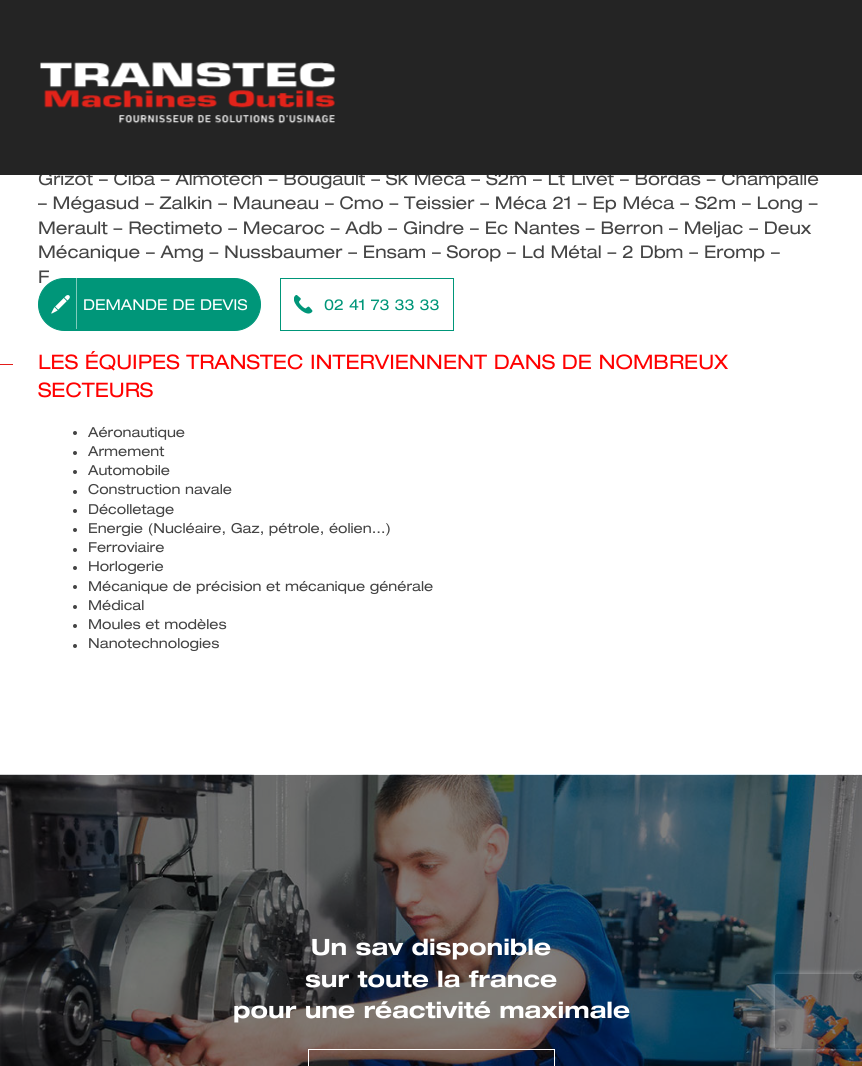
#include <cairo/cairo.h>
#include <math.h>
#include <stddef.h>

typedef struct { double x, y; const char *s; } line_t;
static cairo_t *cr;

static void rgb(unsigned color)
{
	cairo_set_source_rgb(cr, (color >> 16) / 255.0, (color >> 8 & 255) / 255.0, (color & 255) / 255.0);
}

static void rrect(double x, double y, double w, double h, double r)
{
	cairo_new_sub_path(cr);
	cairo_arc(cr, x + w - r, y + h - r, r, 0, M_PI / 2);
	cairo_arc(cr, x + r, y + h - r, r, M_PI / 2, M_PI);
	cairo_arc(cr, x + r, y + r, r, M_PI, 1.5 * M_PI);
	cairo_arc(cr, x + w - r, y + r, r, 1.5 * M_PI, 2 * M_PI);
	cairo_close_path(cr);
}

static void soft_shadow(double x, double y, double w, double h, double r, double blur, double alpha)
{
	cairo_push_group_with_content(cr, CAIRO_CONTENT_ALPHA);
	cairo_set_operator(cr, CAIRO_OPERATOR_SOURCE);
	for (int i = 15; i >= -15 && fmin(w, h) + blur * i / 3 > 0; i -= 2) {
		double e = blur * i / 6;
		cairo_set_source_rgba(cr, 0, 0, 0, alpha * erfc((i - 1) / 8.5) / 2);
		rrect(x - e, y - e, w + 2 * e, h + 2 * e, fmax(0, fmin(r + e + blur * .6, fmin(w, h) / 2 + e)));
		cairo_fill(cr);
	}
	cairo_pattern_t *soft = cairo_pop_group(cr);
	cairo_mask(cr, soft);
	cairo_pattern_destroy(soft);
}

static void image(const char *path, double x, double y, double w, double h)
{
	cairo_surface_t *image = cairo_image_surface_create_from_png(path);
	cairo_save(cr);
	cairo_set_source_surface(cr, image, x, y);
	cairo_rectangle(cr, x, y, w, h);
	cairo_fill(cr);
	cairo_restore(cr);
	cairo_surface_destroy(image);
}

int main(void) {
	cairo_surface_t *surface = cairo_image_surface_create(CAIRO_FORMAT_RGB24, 862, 1066);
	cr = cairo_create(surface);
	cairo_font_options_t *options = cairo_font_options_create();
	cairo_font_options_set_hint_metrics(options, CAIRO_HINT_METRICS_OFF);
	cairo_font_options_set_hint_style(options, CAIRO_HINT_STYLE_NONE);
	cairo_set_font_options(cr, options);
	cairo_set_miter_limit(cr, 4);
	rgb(0xffffff);
	cairo_paint(cr);
	rgb(0xe31d1a);
	cairo_rectangle(cr, 0, 364, 13, 1);
	cairo_fill(cr);
	rgb(0x444444);
	cairo_arc(cr, 75, 433, 2, 0, 2 * M_PI);
	cairo_fill(cr);
	cairo_arc(cr, 75, 453, 2, 0, 2 * M_PI);
	cairo_fill(cr);
	cairo_arc(cr, 75, 472, 2, 0, 2 * M_PI);
	cairo_fill(cr);
	cairo_arc(cr, 75, 492, 2, 0, 2 * M_PI);
	cairo_fill(cr);
	cairo_arc(cr, 75, 511, 2, 0, 2 * M_PI);
	cairo_fill(cr);
	cairo_arc(cr, 75, 530, 2, 0, 2 * M_PI);
	cairo_fill(cr);
	cairo_arc(cr, 75, 550, 2, 0, 2 * M_PI);
	cairo_fill(cr);
	cairo_arc(cr, 75, 568, 2, 0, 2 * M_PI);
	cairo_fill(cr);
	cairo_arc(cr, 75, 587, 2, 0, 2 * M_PI);
	cairo_fill(cr);
	cairo_arc(cr, 75, 607, 2, 0, 2 * M_PI);
	cairo_fill(cr);
	cairo_arc(cr, 75, 626, 2, 0, 2 * M_PI);
	cairo_fill(cr);
	cairo_arc(cr, 75, 646, 2, 0, 2 * M_PI);
	cairo_fill(cr);
	rgb(0x000000);
	cairo_rectangle(cr, 0, 775, 862, 291);
	cairo_fill(cr);
	cairo_save(cr);
	cairo_set_fill_rule(cr, CAIRO_FILL_RULE_EVEN_ODD);
	cairo_new_path(cr);
	cairo_move_to(cr, 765, 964);
	cairo_line_to(cr, 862, 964);
	cairo_line_to(cr, 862, 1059);
	cairo_line_to(cr, 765, 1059);
	cairo_close_path(cr);
	cairo_move_to(cr, 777.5, 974);
	cairo_line_to(cr, 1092.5, 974);
	cairo_curve_to(cr, 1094, 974, 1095, 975, 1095, 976.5);
	cairo_line_to(cr, 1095, 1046.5);
	cairo_curve_to(cr, 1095, 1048, 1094, 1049, 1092.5, 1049);
	cairo_line_to(cr, 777.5, 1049);
	cairo_curve_to(cr, 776, 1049, 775, 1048, 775, 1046.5);
	cairo_line_to(cr, 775, 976.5);
	cairo_curve_to(cr, 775, 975, 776, 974, 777.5, 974);
	cairo_close_path(cr);
	cairo_clip(cr);
	rgb(0x808080);
	soft_shadow(775, 974, 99, 75, 2.5, 3, 1);
	cairo_restore(cr);
	image("img/1.png", 0, 774, 862, 292);
	cairo_rectangle(cr, 308.5, 1049.5, 246, 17);
	rgb(0xffffff);
	cairo_set_line_width(cr, 1);
	cairo_stroke(cr);
	cairo_rectangle(cr, 280.5, 278.5, 173, 52);
	rgb(0x009679);
	cairo_stroke(cr);
	image("img/4.png", 294, 295, 19, 19);
	cairo_select_font_face(cr, "Helvetica Neue", CAIRO_FONT_SLANT_NORMAL, CAIRO_FONT_WEIGHT_NORMAL);
	cairo_set_font_size(cr, 17.5);
	rgb(0x444444);
	{
		static const line_t items[] = {
			{38, 185, "Grizot – Ciba – Almotech – Bougault – Sk Méca – S2m – Lt Livet – Bordas – Champalle"},
			{38, 209, "– Mégasud – Zalkin – Mauneau – Cmo – Teissier – Méca 21 – Ep Méca – S2m – Long –"},
			{38, 234, "Merault – Rectimeto – Mecaroc – Adb – Gindre – Ec Nantes – Berron – Meljac – Deux"},
			{38, 258, "Mécanique – Amg – Nussbaumer – Ensam – Sorop – Ld Métal – 2 Dbm – Eromp –"},
			{38, 283, "F"},
		};
		for (size_t i = 0; i < sizeof items / sizeof *items; i++) {
			cairo_move_to(cr, items[i].x, items[i].y);
			cairo_show_text(cr, items[i].s);
		}
	}
	cairo_set_font_size(cr, 20);
	rgb(0xff0000);
	cairo_move_to(cr, 38, 369);
	cairo_show_text(cr, "LES ÉQUIPES TRANSTEC INTERVIENNENT DANS DE NOMBREUX");
	cairo_move_to(cr, 38, 397);
	cairo_show_text(cr, "SECTEURS");
	cairo_set_font_size(cr, 13.75);
	rgb(0x444444);
	{
		static const line_t items[] = {
			{88, 437, "Aéronautique"},
			{88, 456, "Armement"},
			{88, 475, "Automobile"},
			{88, 494, "Construction navale"},
			{88, 514, "Décolletage"},
			{88, 533, "Energie (Nucléaire, Gaz, pétrole, éolien…)"},
			{88, 552, "Ferroviaire"},
			{88, 571, "Horlogerie"},
			{88, 591, "Mécanique de précision et mécanique générale"},
			{88, 610, "Médical"},
			{88, 629, "Moules et modèles"},
			{88, 648, "Nanotechnologies"},
		};
		for (size_t i = 0; i < sizeof items / sizeof *items; i++) {
			cairo_move_to(cr, items[i].x, items[i].y);
			cairo_show_text(cr, items[i].s);
		}
	}
	cairo_select_font_face(cr, "Helvetica Neue", CAIRO_FONT_SLANT_NORMAL, CAIRO_FONT_WEIGHT_BOLD);
	cairo_set_font_size(cr, 22.5);
	rgb(0xffffff);
	{
		static const line_t items[] = {
			{311, 955, "Un sav disponible"},
			{305, 987, "sur toute la france"},
			{233, 1018, "pour une réactivité maximale"},
		};
		for (size_t i = 0; i < sizeof items / sizeof *items; i++) {
			cairo_move_to(cr, items[i].x, items[i].y);
			cairo_show_text(cr, items[i].s);
		}
	}
	rgb(0x242424);
	cairo_rectangle(cr, 0, 0, 862, 175);
	cairo_fill(cr);
	image("img/2.png", 40, 62, 295, 62);
	rgb(0x009679);
	rrect(38.5, 278.5, 222, 52, 26);
	cairo_fill_preserve(cr);
	cairo_stroke(cr);
	image("img/3.png", 51, 295, 19, 19);
	rgb(0x80cbbc);
	cairo_rectangle(cr, 76, 278, 1, 51);
	cairo_fill(cr);
	cairo_select_font_face(cr, "Helvetica Neue", CAIRO_FONT_SLANT_NORMAL, CAIRO_FONT_WEIGHT_NORMAL);
	cairo_set_font_size(cr, 15);
	rgb(0xffffff);
	cairo_move_to(cr, 83, 310);
	cairo_show_text(cr, "DEMANDE DE DEVIS");
	rgb(0x009679);
	cairo_move_to(cr, 324, 310);
	cairo_show_text(cr, "02 41 73 33 33");
	cairo_surface_write_to_png(surface, "page.png");
	cairo_font_options_destroy(options);
	cairo_destroy(cr);
	cairo_surface_destroy(surface);
	return 0;
}
